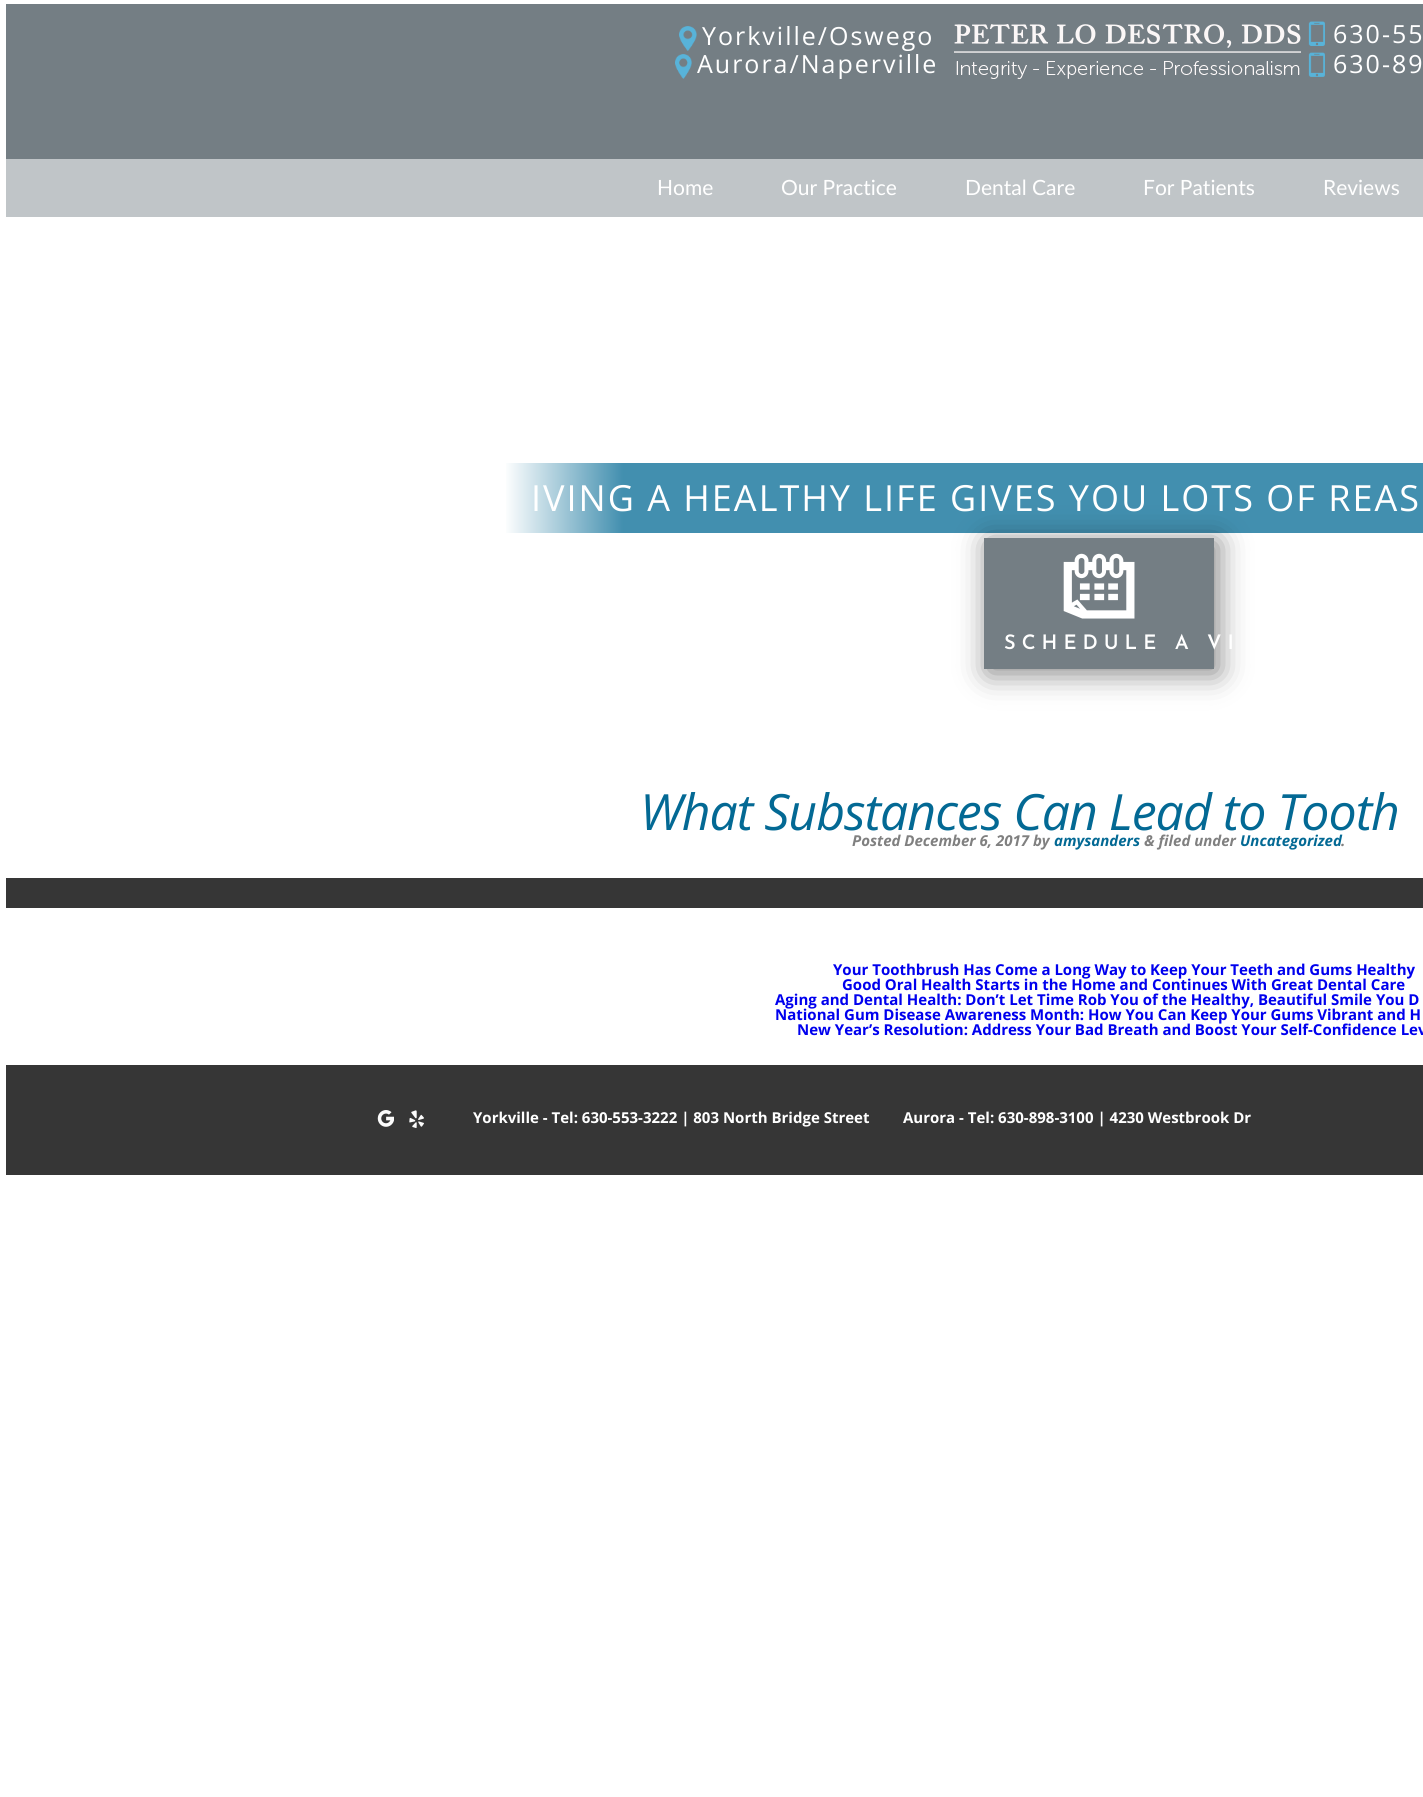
#include <cairo/cairo.h>
#include <math.h>
#include <stddef.h>

typedef struct { double x, y; const char *s; } line_t;
static cairo_t *cr;

static void rgb(unsigned color)
{
	cairo_set_source_rgb(cr, (color >> 16) / 255.0, (color >> 8 & 255) / 255.0, (color & 255) / 255.0);
}

static void tracked(double x, double y, const char *s, double letter, double word)
{
	cairo_move_to(cr, x, y);
	while (*s) {
		char ch[5] = {0};
		int n = 0;
		do ch[n++] = *s++; while ((*s & 0xC0) == 0x80);
		cairo_show_text(cr, ch);
		cairo_rel_move_to(cr, letter + word * (*ch == ' '), 0);
	}
}

static void rrect(double x, double y, double w, double h, double r)
{
	cairo_new_sub_path(cr);
	cairo_arc(cr, x + w - r, y + h - r, r, 0, M_PI / 2);
	cairo_arc(cr, x + r, y + h - r, r, M_PI / 2, M_PI);
	cairo_arc(cr, x + r, y + r, r, M_PI, 1.5 * M_PI);
	cairo_arc(cr, x + w - r, y + r, r, 1.5 * M_PI, 2 * M_PI);
	cairo_close_path(cr);
}

static void soft_shadow(double x, double y, double w, double h, double r, double blur, double alpha)
{
	cairo_push_group_with_content(cr, CAIRO_CONTENT_ALPHA);
	cairo_set_operator(cr, CAIRO_OPERATOR_SOURCE);
	for (int i = 15; i >= -15 && fmin(w, h) + blur * i / 3 > 0; i -= 2) {
		double e = blur * i / 6;
		cairo_set_source_rgba(cr, 0, 0, 0, alpha * erfc((i - 1) / 8.5) / 2);
		rrect(x - e, y - e, w + 2 * e, h + 2 * e, fmax(0, fmin(r + e + blur * .6, fmin(w, h) / 2 + e)));
		cairo_fill(cr);
	}
	cairo_pattern_t *soft = cairo_pop_group(cr);
	cairo_mask(cr, soft);
	cairo_pattern_destroy(soft);
}

static void image(const char *path, double x, double y, double w, double h)
{
	cairo_surface_t *image = cairo_image_surface_create_from_png(path);
	cairo_save(cr);
	cairo_set_source_surface(cr, image, x, y);
	cairo_rectangle(cr, x, y, w, h);
	cairo_fill(cr);
	cairo_restore(cr);
	cairo_surface_destroy(image);
}

int main(void) {
	cairo_surface_t *surface = cairo_image_surface_create(CAIRO_FORMAT_RGB24, 1423, 1797);
	cr = cairo_create(surface);
	cairo_font_options_t *options = cairo_font_options_create();
	cairo_font_options_set_hint_metrics(options, CAIRO_HINT_METRICS_OFF);
	cairo_font_options_set_hint_style(options, CAIRO_HINT_STYLE_NONE);
	cairo_set_font_options(cr, options);
	cairo_set_miter_limit(cr, 4);
	cairo_pattern_t *gradient;
	rgb(0xffffff);
	cairo_paint(cr);
	rgb(0xc0c5c8);
	cairo_rectangle(cr, 6, 159, 1417, 58);
	cairo_fill(cr);
	rgb(0x747e84);
	cairo_rectangle(cr, 6, 4, 1417, 155);
	cairo_fill(cr);
	image("img/1.png", 679, 26, 18, 25);
	image("img/2.png", 675, 54, 17, 25);
	image("img/3.png", 954, 24, 347, 55);
	image("img/4.png", 1308, 21, 17, 25);
	image("img/5.png", 1308, 52, 17, 25);
	gradient = cairo_pattern_create_linear(504, 498, 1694, 498);
	cairo_pattern_add_color_stop_rgba(gradient, 0, 1, 1, 1, 1);
	cairo_pattern_add_color_stop_rgba(gradient, 0.1, 0.259, 0.561, 0.686, 1);
	cairo_pattern_add_color_stop_rgba(gradient, 0.9, 0.259, 0.561, 0.686, 1);
	cairo_pattern_add_color_stop_rgba(gradient, 1, 1, 1, 1, 1);
	cairo_set_source(cr, gradient);
	cairo_pattern_destroy(gradient);
	cairo_rectangle(cr, 506, 463, 917, 70);
	cairo_fill(cr);
	rgb(0x000000);
	soft_shadow(988, 542, 230, 131, 0, 15, 0.5);
	rgb(0x747e84);
	cairo_rectangle(cr, 984, 538, 230, 131);
	cairo_fill(cr);
	image("img/6.png", 1063, 553, 72, 66);
	rgb(0x363636);
	cairo_rectangle(cr, 6, 878, 1417, 30);
	cairo_fill(cr);
	cairo_rectangle(cr, 6, 1065, 1417, 110);
	cairo_fill(cr);
	image("img/7.png", 377, 1110, 17, 17);
	image("img/8.png", 409, 1110, 15, 18);
	cairo_select_font_face(cr, "Open Sans", CAIRO_FONT_SLANT_NORMAL, CAIRO_FONT_WEIGHT_NORMAL);
	cairo_set_font_size(cr, 25);
	rgb(0xffffff);
	{
		static const line_t items[] = {
			{702, 45, "Yorkville/Oswego"},
			{697, 73, "Aurora/Naperville"},
			{1333, 43, "630-55"},
			{1333, 73, "630-89"},
		};
		for (size_t i = 0; i < sizeof items / sizeof *items; i++) {
			tracked(items[i].x, items[i].y, items[i].s, 2, 0);
		}
	}
	cairo_select_font_face(cr, "Lato", CAIRO_FONT_SLANT_NORMAL, CAIRO_FONT_WEIGHT_NORMAL);
	cairo_set_font_size(cr, 21);
	{
		static const line_t items[] = {
			{657, 195, "Home"},
			{781, 195, "Our Practice"},
			{965, 195, "Dental Care"},
			{1143, 195, "For Patients"},
			{1323, 195, "Reviews"},
		};
		for (size_t i = 0; i < sizeof items / sizeof *items; i++) {
			cairo_move_to(cr, items[i].x, items[i].y);
			cairo_show_text(cr, items[i].s);
		}
	}
	cairo_select_font_face(cr, "Open Sans", CAIRO_FONT_SLANT_NORMAL, CAIRO_FONT_WEIGHT_NORMAL);
	cairo_set_font_size(cr, 36);
	tracked(531, 511, "IVING A HEALTHY LIFE GIVES YOU LOTS OF REAS", 2, 0);
	cairo_select_font_face(cr, "Josefin Sans SemiBold", CAIRO_FONT_SLANT_NORMAL, CAIRO_FONT_WEIGHT_NORMAL);
	cairo_set_font_size(cr, 20);
	tracked(1004, 649, "SCHEDULE A VI", 6, 0);
	cairo_select_font_face(cr, "Open Sans", CAIRO_FONT_SLANT_ITALIC, CAIRO_FONT_WEIGHT_NORMAL);
	cairo_set_font_size(cr, 50);
	rgb(0x036994);
	tracked(640, 830, "What Substances Can Lead to Tooth", -1, 0);
	cairo_select_font_face(cr, "Open Sans", CAIRO_FONT_SLANT_ITALIC, CAIRO_FONT_WEIGHT_BOLD);
	cairo_set_font_size(cr, 15);
	rgb(0x808080);
	cairo_move_to(cr, 852, 846);
	cairo_show_text(cr, "Posted December 6, 2017 by");
	rgb(0x036994);
	cairo_move_to(cr, 1054, 846);
	cairo_show_text(cr, "amysanders");
	rgb(0x808080);
	cairo_move_to(cr, 1144, 846);
	cairo_show_text(cr, "& filed under");
	rgb(0x036994);
	cairo_move_to(cr, 1240, 846);
	cairo_show_text(cr, "Uncategorized");
	rgb(0x808080);
	cairo_move_to(cr, 1341, 846);
	cairo_show_text(cr, ".");
	cairo_select_font_face(cr, "Open Sans", CAIRO_FONT_SLANT_NORMAL, CAIRO_FONT_WEIGHT_BOLD);
	rgb(0x0000ee);
	{
		static const line_t items[] = {
			{833, 975, "Your Toothbrush Has Come a Long Way to Keep Your Teeth and Gums Healthy"},
			{842, 990, "Good Oral Health Starts in the Home and Continues With Great Dental Care"},
			{775, 1005, "Aging and Dental Health: Don’t Let Time Rob You of the Healthy, Beautiful Smile You D"},
			{775, 1020, "National Gum Disease Awareness Month: How You Can Keep Your Gums Vibrant and H"},
			{797, 1035, "New Year’s Resolution: Address Your Bad Breath and Boost Your Self-Confidence Lev"},
		};
		for (size_t i = 0; i < sizeof items / sizeof *items; i++) {
			cairo_move_to(cr, items[i].x, items[i].y);
			cairo_show_text(cr, items[i].s);
		}
	}
	rgb(0xffffff);
	cairo_move_to(cr, 473, 1123);
	cairo_show_text(cr, "Yorkville - Tel: 630-553-3222 | 803 North Bridge Street");
	cairo_move_to(cr, 903, 1123);
	cairo_show_text(cr, "Aurora - Tel: 630-898-3100 | 4230 Westbrook Dr");
	cairo_surface_write_to_png(surface, "page.png");
	cairo_font_options_destroy(options);
	cairo_destroy(cr);
	cairo_surface_destroy(surface);
	return 0;
}
